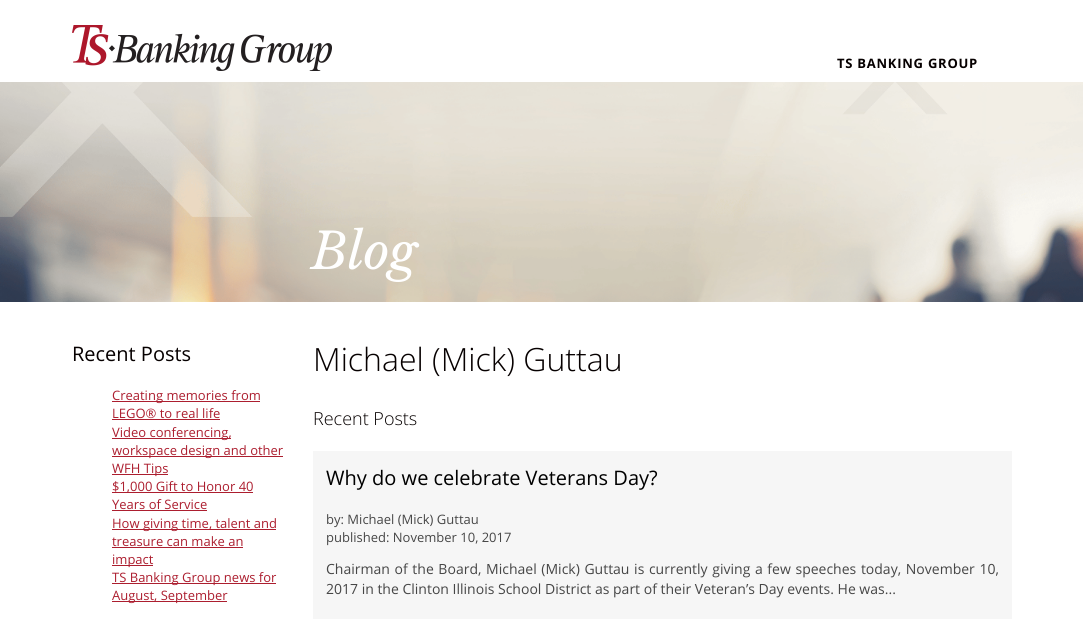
#include <cairo/cairo.h>
#include <math.h>
#include <stddef.h>

typedef struct { double x, y; const char *s; } line_t;
typedef struct { double x, y, w, h; unsigned color; } box_t;
static cairo_t *cr;

static void rgb(unsigned color)
{
	cairo_set_source_rgb(cr, (color >> 16) / 255.0, (color >> 8 & 255) / 255.0, (color & 255) / 255.0);
}

static void tracked(double x, double y, const char *s, double letter, double word)
{
	cairo_move_to(cr, x, y);
	while (*s) {
		char ch[5] = {0};
		int n = 0;
		do ch[n++] = *s++; while ((*s & 0xC0) == 0x80);
		cairo_show_text(cr, ch);
		cairo_rel_move_to(cr, letter + word * (*ch == ' '), 0);
	}
}

static void image(const char *path, double x, double y, double w, double h)
{
	cairo_surface_t *image = cairo_image_surface_create_from_png(path);
	cairo_save(cr);
	cairo_set_source_surface(cr, image, x, y);
	cairo_rectangle(cr, x, y, w, h);
	cairo_fill(cr);
	cairo_restore(cr);
	cairo_surface_destroy(image);
}

int main(void) {
	cairo_surface_t *surface = cairo_image_surface_create(CAIRO_FORMAT_RGB24, 1083, 619);
	cr = cairo_create(surface);
	cairo_font_options_t *options = cairo_font_options_create();
	cairo_font_options_set_hint_metrics(options, CAIRO_HINT_METRICS_OFF);
	cairo_font_options_set_hint_style(options, CAIRO_HINT_STYLE_NONE);
	cairo_set_font_options(cr, options);
	cairo_set_miter_limit(cr, 4);
	rgb(0xffffff);
	cairo_paint(cr);
	image("img/1.png", 72, 25, 260, 46);
	image("img/2.png", 0, 82, 1083, 220);
	{
		static const box_t items[] = {
			{112, 401, 148, 1, 0xac1e2f},
			{112, 419, 108, 1, 0xac1e2f},
			{112, 438, 119, 1, 0xac1e2f},
			{112, 456, 171, 1, 0xac1e2f},
			{112, 474, 56, 1, 0xac1e2f},
			{112, 492, 141, 1, 0xac1e2f},
			{112, 510, 95, 1, 0xac1e2f},
			{112, 529, 164, 1, 0xac1e2f},
			{112, 547, 131, 1, 0xac1e2f},
			{112, 565, 41, 1, 0xac1e2f},
			{112, 583, 164, 1, 0xac1e2f},
			{112, 601, 115, 1, 0xac1e2f},
			{313, 451, 699, 168, 0xf6f6f6},
		};
		for (size_t i = 0; i < sizeof items / sizeof *items; i++) {
			rgb(items[i].color);
			cairo_rectangle(cr, items[i].x, items[i].y, items[i].w, items[i].h);
			cairo_fill(cr);
		}
	}
	cairo_select_font_face(cr, "Open Sans", CAIRO_FONT_SLANT_NORMAL, CAIRO_FONT_WEIGHT_BOLD);
	cairo_set_font_size(cr, 13);
	rgb(0x060000);
	tracked(837, 68, "TS BANKING GROUP", 0.75, 0);
	cairo_select_font_face(cr, "Libre Baskerville", CAIRO_FONT_SLANT_ITALIC, CAIRO_FONT_WEIGHT_NORMAL);
	cairo_set_font_size(cr, 50);
	rgb(0xffffff);
	cairo_move_to(cr, 311, 269);
	cairo_show_text(cr, "Blog");
	cairo_select_font_face(cr, "Open Sans", CAIRO_FONT_SLANT_NORMAL, CAIRO_FONT_WEIGHT_NORMAL);
	cairo_set_font_size(cr, 20);
	rgb(0x060000);
	cairo_move_to(cr, 72, 361);
	cairo_show_text(cr, "Recent Posts");
	cairo_set_font_size(cr, 13);
	rgb(0xac1e2f);
	{
		static const line_t items[] = {
			{112, 400, "Creating memories from"},
			{112, 418, "LEGO® to real life"},
			{112, 437, "Video conferencing,"},
			{112, 455, "workspace design and other"},
			{112, 473, "WFH Tips"},
			{112, 491, "$1,000 Gift to Honor 40"},
			{112, 509, "Years of Service"},
			{112, 528, "How giving time, talent and"},
			{112, 546, "treasure can make an"},
			{112, 564, "impact"},
			{112, 582, "TS Banking Group news for"},
			{112, 600, "August, September"},
		};
		for (size_t i = 0; i < sizeof items / sizeof *items; i++) {
			cairo_move_to(cr, items[i].x, items[i].y);
			cairo_show_text(cr, items[i].s);
		}
	}
	cairo_select_font_face(cr, "Open Sans Light", CAIRO_FONT_SLANT_NORMAL, CAIRO_FONT_WEIGHT_NORMAL);
	cairo_set_font_size(cr, 32);
	rgb(0x060000);
	cairo_move_to(cr, 313, 371);
	cairo_show_text(cr, "Michael (Mick) Guttau");
	cairo_set_font_size(cr, 18);
	cairo_move_to(cr, 313, 425);
	cairo_show_text(cr, "Recent Posts");
	cairo_select_font_face(cr, "Open Sans", CAIRO_FONT_SLANT_NORMAL, CAIRO_FONT_WEIGHT_NORMAL);
	cairo_set_font_size(cr, 20);
	rgb(0x000000);
	cairo_move_to(cr, 326, 485);
	cairo_show_text(cr, "Why do we celebrate Veterans Day?");
	cairo_set_font_size(cr, 13);
	rgb(0x464646);
	cairo_move_to(cr, 326, 524);
	cairo_show_text(cr, "by: Michael (Mick) Guttau");
	cairo_move_to(cr, 326, 542);
	cairo_show_text(cr, "published: November 10, 2017");
	cairo_set_font_size(cr, 14);
	tracked(326, 574, "Chairman of the Board, Michael (Mick) Guttau is currently giving a few speeches today, November 10,", 0, 1);
	cairo_move_to(cr, 326, 594);
	cairo_show_text(cr, "2017 in the Clinton Illinois School District as part of their Veteran’s Day events. He was...");
	cairo_surface_write_to_png(surface, "page.png");
	cairo_font_options_destroy(options);
	cairo_destroy(cr);
	cairo_surface_destroy(surface);
	return 0;
}
